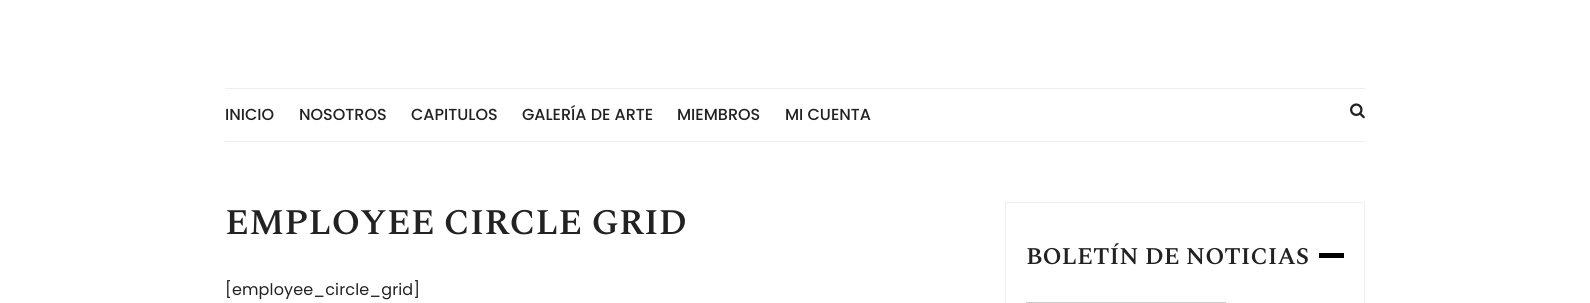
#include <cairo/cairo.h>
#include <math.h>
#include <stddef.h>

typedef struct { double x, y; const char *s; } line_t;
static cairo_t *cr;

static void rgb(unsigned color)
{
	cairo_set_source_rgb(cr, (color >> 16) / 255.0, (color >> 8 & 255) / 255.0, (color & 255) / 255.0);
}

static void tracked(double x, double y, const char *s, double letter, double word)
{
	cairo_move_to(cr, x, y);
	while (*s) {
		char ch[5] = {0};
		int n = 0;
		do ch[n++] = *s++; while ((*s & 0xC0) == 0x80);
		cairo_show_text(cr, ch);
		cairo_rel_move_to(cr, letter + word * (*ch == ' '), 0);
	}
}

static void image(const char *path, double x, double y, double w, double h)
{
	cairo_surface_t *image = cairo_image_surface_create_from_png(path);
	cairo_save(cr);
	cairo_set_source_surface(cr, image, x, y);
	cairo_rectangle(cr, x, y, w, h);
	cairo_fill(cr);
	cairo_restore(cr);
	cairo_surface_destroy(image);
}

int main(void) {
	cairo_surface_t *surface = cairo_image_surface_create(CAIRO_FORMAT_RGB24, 1590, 303);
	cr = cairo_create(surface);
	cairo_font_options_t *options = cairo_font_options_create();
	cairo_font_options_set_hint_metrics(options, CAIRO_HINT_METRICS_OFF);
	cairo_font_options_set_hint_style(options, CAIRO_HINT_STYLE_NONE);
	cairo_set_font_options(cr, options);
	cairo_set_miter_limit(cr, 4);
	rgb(0xffffff);
	cairo_paint(cr);
	rgb(0xeeeeee);
	cairo_rectangle(cr, 225, 88, 1140, 1);
	cairo_fill(cr);
	cairo_rectangle(cr, 225, 141, 1140, 1);
	cairo_fill(cr);
	image("img/1.png", 1350, 103, 15, 16);
	cairo_rectangle(cr, 1005.5, 202.5, 359, 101);
	cairo_set_line_width(cr, 1);
	cairo_stroke(cr);
	rgb(0x010101);
	cairo_rectangle(cr, 1319, 253, 25, 5);
	cairo_fill(cr);
	cairo_rectangle(cr, 1026.5, 302.5, 199, 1);
	rgb(0xcccccc);
	cairo_stroke(cr);
	cairo_select_font_face(cr, "Poppins Medium", CAIRO_FONT_SLANT_NORMAL, CAIRO_FONT_WEIGHT_NORMAL);
	cairo_set_font_size(cr, 16);
	rgb(0x222222);
	{
		static const line_t items[] = {
			{225, 120, "INICIO"},
			{299, 120, "NOSOTROS"},
			{411, 120, "CAPITULOS"},
			{522, 120, "GALERÍA DE ARTE"},
			{677, 120, "MIEMBROS"},
			{785, 120, "MI CUENTA"},
		};
		for (size_t i = 0; i < sizeof items / sizeof *items; i++) {
			cairo_move_to(cr, items[i].x, items[i].y);
			cairo_show_text(cr, items[i].s);
		}
	}
	cairo_select_font_face(cr, "Spectral SC SemiBold", CAIRO_FONT_SLANT_NORMAL, CAIRO_FONT_WEIGHT_NORMAL);
	cairo_set_font_size(cr, 36);
	cairo_move_to(cr, 225, 234);
	cairo_show_text(cr, "EMPLOYEE CIRCLE GRID");
	cairo_select_font_face(cr, "Poppins", CAIRO_FONT_SLANT_NORMAL, CAIRO_FONT_WEIGHT_NORMAL);
	cairo_set_font_size(cr, 16);
	tracked(225, 295, "[employee_circle_grid]", 0.15, 0);
	cairo_select_font_face(cr, "Spectral SC SemiBold", CAIRO_FONT_SLANT_NORMAL, CAIRO_FONT_WEIGHT_NORMAL);
	cairo_set_font_size(cr, 24);
	cairo_move_to(cr, 1026, 264);
	cairo_show_text(cr, "BOLETÍN DE NOTICIAS");
	cairo_surface_write_to_png(surface, "page.png");
	cairo_font_options_destroy(options);
	cairo_destroy(cr);
	cairo_surface_destroy(surface);
	return 0;
}
